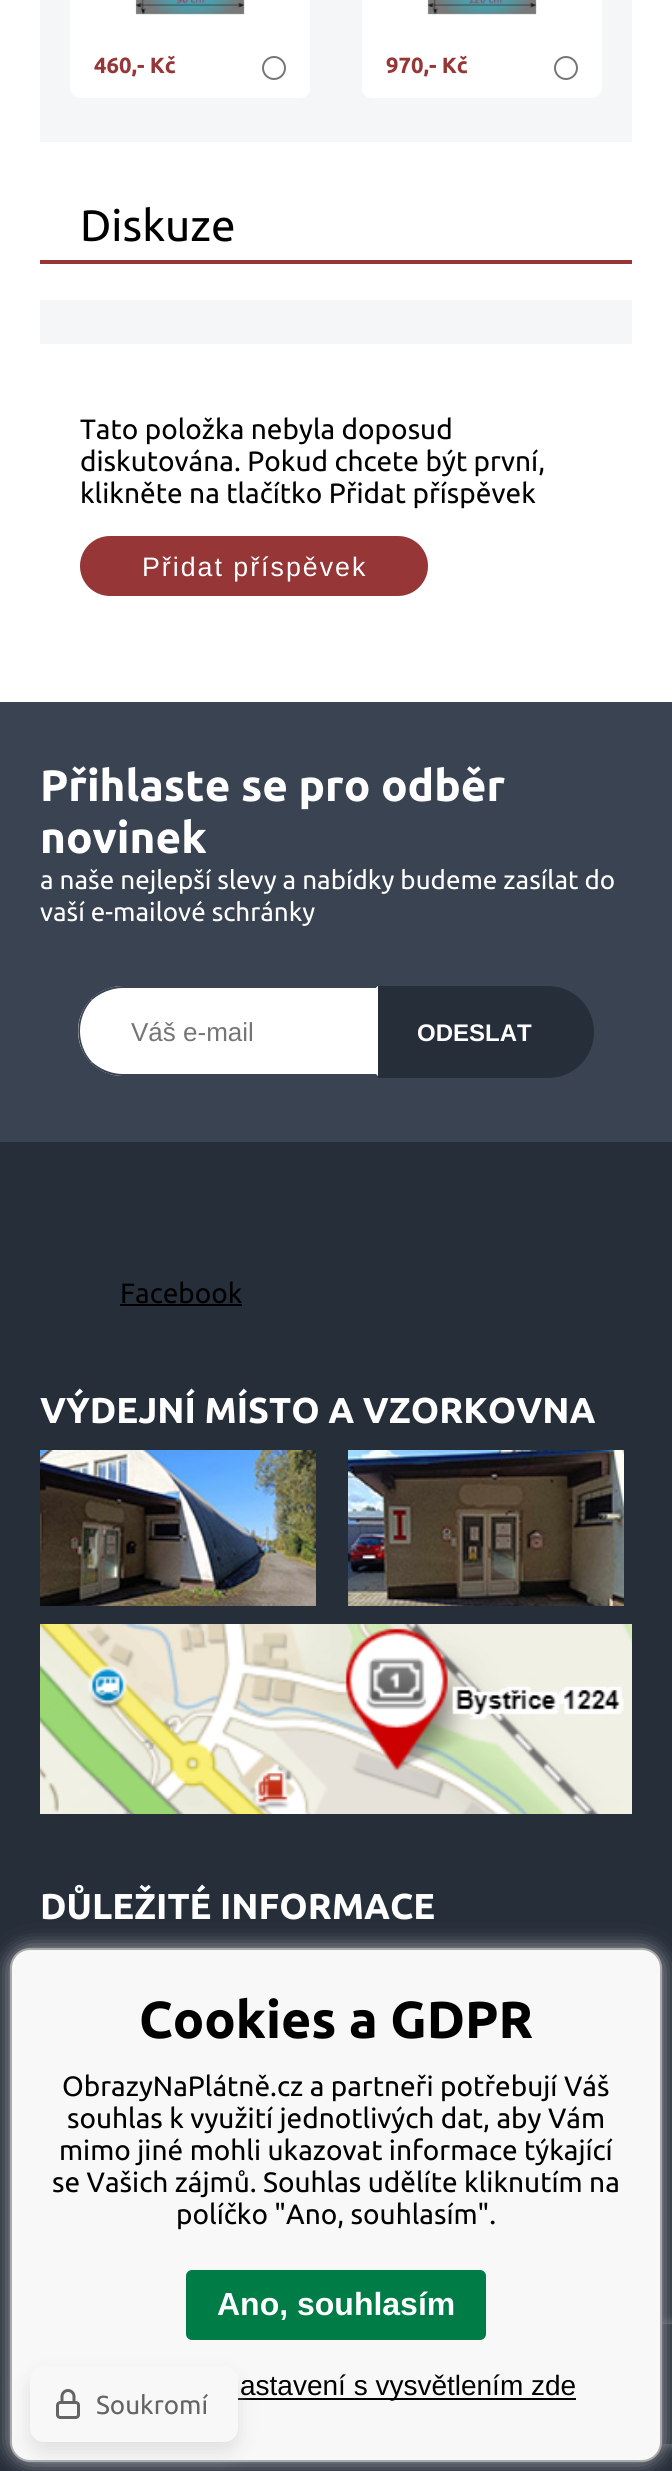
#include <cairo/cairo.h>
#include <math.h>
#include <stddef.h>

typedef struct { double x, y; const char *s; } line_t;
static cairo_t *cr;

static void rgb(unsigned color)
{
	cairo_set_source_rgb(cr, (color >> 16) / 255.0, (color >> 8 & 255) / 255.0, (color & 255) / 255.0);
}

static void tracked(double x, double y, const char *s, double letter, double word)
{
	cairo_move_to(cr, x, y);
	while (*s) {
		char ch[5] = {0};
		int n = 0;
		do ch[n++] = *s++; while ((*s & 0xC0) == 0x80);
		cairo_show_text(cr, ch);
		cairo_rel_move_to(cr, letter + word * (*ch == ' '), 0);
	}
}

static void rrect(double x, double y, double w, double h, double r)
{
	cairo_new_sub_path(cr);
	cairo_arc(cr, x + w - r, y + h - r, r, 0, M_PI / 2);
	cairo_arc(cr, x + r, y + h - r, r, M_PI / 2, M_PI);
	cairo_arc(cr, x + r, y + r, r, M_PI, 1.5 * M_PI);
	cairo_arc(cr, x + w - r, y + r, r, 1.5 * M_PI, 2 * M_PI);
	cairo_close_path(cr);
}

static void soft_shadow(double x, double y, double w, double h, double r, double blur, double alpha)
{
	cairo_push_group_with_content(cr, CAIRO_CONTENT_ALPHA);
	cairo_set_operator(cr, CAIRO_OPERATOR_SOURCE);
	for (int i = 15; i >= -15 && fmin(w, h) + blur * i / 3 > 0; i -= 2) {
		double e = blur * i / 6;
		cairo_set_source_rgba(cr, 0, 0, 0, alpha * erfc((i - 1) / 8.5) / 2);
		rrect(x - e, y - e, w + 2 * e, h + 2 * e, fmax(0, fmin(r + e + blur * .6, fmin(w, h) / 2 + e)));
		cairo_fill(cr);
	}
	cairo_pattern_t *soft = cairo_pop_group(cr);
	cairo_mask(cr, soft);
	cairo_pattern_destroy(soft);
}

static void image(const char *path, double x, double y, double w, double h)
{
	cairo_surface_t *image = cairo_image_surface_create_from_png(path);
	cairo_save(cr);
	cairo_set_source_surface(cr, image, x, y);
	cairo_rectangle(cr, x, y, w, h);
	cairo_fill(cr);
	cairo_restore(cr);
	cairo_surface_destroy(image);
}

int main(void) {
	cairo_surface_t *surface = cairo_image_surface_create(CAIRO_FORMAT_RGB24, 672, 2471);
	cr = cairo_create(surface);
	cairo_font_options_t *options = cairo_font_options_create();
	cairo_font_options_set_hint_metrics(options, CAIRO_HINT_METRICS_OFF);
	cairo_font_options_set_hint_style(options, CAIRO_HINT_STYLE_NONE);
	cairo_set_font_options(cr, options);
	cairo_set_miter_limit(cr, 4);
	rgb(0xffffff);
	cairo_paint(cr);
	rgb(0xf5f6f7);
	cairo_rectangle(cr, 40, 0, 592, 142);
	cairo_fill(cr);
	rgb(0xffffff);
	rrect(70, -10, 240, 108, 10);
	cairo_fill(cr);
	image("img/1.png", 94, 0, 192, 36);
	cairo_arc(cr, 274, 68, 11, 0, 2 * M_PI);
	rgb(0x767676);
	cairo_stroke(cr);
	rgb(0xffffff);
	rrect(362, -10, 240, 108, 10);
	cairo_fill(cr);
	image("img/2.png", 386, 0, 192, 36);
	cairo_arc(cr, 566, 68, 11, 0, 2 * M_PI);
	rgb(0x767676);
	cairo_stroke(cr);
	rgb(0xf5f6f7);
	cairo_rectangle(cr, 40, 300, 592, 44);
	cairo_fill(cr);
	rgb(0x973637);
	cairo_rectangle(cr, 40, 260, 592, 4);
	cairo_fill(cr);
	rrect(81, 537, 346, 58, 29);
	cairo_fill_preserve(cr);
	cairo_stroke(cr);
	rgb(0x3a4352);
	cairo_rectangle(cr, 0, 702, 672, 440);
	cairo_fill(cr);
	rgb(0xffffff);
	cairo_new_path(cr);
	cairo_move_to(cr, 123, 986);
	cairo_line_to(cr, 378, 986);
	cairo_line_to(cr, 378, 1076);
	cairo_line_to(cr, 123, 1076);
	cairo_curve_to(cr, 98, 1076, 78, 1056, 78, 1031);
	cairo_curve_to(cr, 78, 1006, 98, 986, 123, 986);
	cairo_close_path(cr);
	cairo_fill(cr);
	rgb(0x3a4352);
	cairo_new_path(cr);
	cairo_move_to(cr, 123, 986);
	cairo_curve_to(cr, 110, 986, 99, 991, 91, 999);
	cairo_line_to(cr, 92, 1000);
	cairo_curve_to(cr, 100, 993, 111, 988, 123, 988);
	cairo_line_to(cr, 376, 988);
	cairo_line_to(cr, 378, 986);
	cairo_close_path(cr);
	cairo_fill(cr);
	rgb(0xffffff);
	cairo_new_path(cr);
	cairo_move_to(cr, 378, 986);
	cairo_line_to(cr, 376, 988);
	cairo_line_to(cr, 376, 1074);
	cairo_line_to(cr, 378, 1076);
	cairo_close_path(cr);
	cairo_fill(cr);
	rgb(0x3a4352);
	cairo_new_path(cr);
	cairo_move_to(cr, 378, 1076);
	cairo_line_to(cr, 376, 1074);
	cairo_line_to(cr, 123, 1074);
	cairo_curve_to(cr, 111, 1074, 100, 1069, 92, 1062);
	cairo_line_to(cr, 91, 1063);
	cairo_curve_to(cr, 99, 1071, 110, 1076, 123, 1076);
	cairo_close_path(cr);
	cairo_fill(cr);
	cairo_new_path(cr);
	cairo_move_to(cr, 91, 1063);
	cairo_curve_to(cr, 74, 1046, 74, 1016, 91, 999);
	cairo_line_to(cr, 92, 1000);
	cairo_curve_to(cr, 76, 1017, 76, 1045, 92, 1062);
	cairo_close_path(cr);
	cairo_fill(cr);
	rgb(0x262e3a);
	cairo_new_path(cr);
	cairo_move_to(cr, 379, 987);
	cairo_line_to(cr, 548, 987);
	cairo_curve_to(cr, 573, 987, 593, 1007, 593, 1032);
	cairo_curve_to(cr, 593, 1057, 573, 1077, 548, 1077);
	cairo_line_to(cr, 379, 1077);
	cairo_close_path(cr);
	cairo_fill_preserve(cr);
	cairo_stroke(cr);
	cairo_rectangle(cr, 0, 1142, 672, 1329);
	cairo_fill(cr);
	rgb(0x000000);
	cairo_rectangle(cr, 120, 1304, 122, 2);
	cairo_fill(cr);
	image("img/3.png", 40, 1450, 276, 156);
	image("img/4.png", 348, 1450, 276, 156);
	image("img/5.png", 40, 1624, 592, 190);
	rgb(0xc8c8c8);
	soft_shadow(10, 1948, 652, 514, 20, 10, 0.8);
	cairo_save(cr);
	cairo_set_fill_rule(cr, CAIRO_FILL_RULE_EVEN_ODD);
	cairo_new_path(cr);
	cairo_move_to(cr, 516, 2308);
	cairo_line_to(cr, 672, 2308);
	cairo_line_to(cr, 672, 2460);
	cairo_line_to(cr, 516, 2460);
	cairo_close_path(cr);
	cairo_move_to(cr, 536, 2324);
	cairo_line_to(cr, 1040, 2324);
	cairo_curve_to(cr, 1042, 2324, 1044, 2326, 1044, 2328);
	cairo_line_to(cr, 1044, 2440);
	cairo_curve_to(cr, 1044, 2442, 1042, 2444, 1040, 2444);
	cairo_line_to(cr, 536, 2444);
	cairo_curve_to(cr, 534, 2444, 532, 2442, 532, 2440);
	cairo_line_to(cr, 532, 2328);
	cairo_curve_to(cr, 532, 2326, 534, 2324, 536, 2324);
	cairo_close_path(cr);
	cairo_clip(cr);
	rgb(0x808080);
	soft_shadow(532, 2324, 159, 120, 4, 5, 1);
	cairo_restore(cr);
	rgb(0xf8f8f8);
	rrect(11, 1949, 650, 512, 19);
	cairo_fill_preserve(cr);
	rgb(0xaaaaaa);
	cairo_stroke(cr);
	rgb(0x007c47);
	rrect(187, 2271, 298, 68, 5);
	cairo_fill_preserve(cr);
	cairo_stroke(cr);
	rgb(0x000000);
	cairo_rectangle(cr, 238, 2398, 338, 2);
	cairo_fill(cr);
	rgb(0xc8c8c8);
	soft_shadow(30, 2376, 208, 76, 14, 10, 0.5);
	rgb(0xf8f8f8);
	rrect(30, 2366, 208, 76, 14);
	cairo_fill(cr);
	image("img/6.png", 56, 2389, 24, 30);
	cairo_select_font_face(cr, "Ubuntu", CAIRO_FONT_SLANT_NORMAL, CAIRO_FONT_WEIGHT_BOLD);
	cairo_set_font_size(cr, 22);
	rgb(0x973637);
	cairo_move_to(cr, 94, 73);
	cairo_show_text(cr, "460,- Kč");
	cairo_move_to(cr, 386, 73);
	cairo_show_text(cr, "970,- Kč");
	cairo_select_font_face(cr, "Ubuntu", CAIRO_FONT_SLANT_NORMAL, CAIRO_FONT_WEIGHT_NORMAL);
	cairo_set_font_size(cr, 44);
	rgb(0x000000);
	cairo_move_to(cr, 80, 241);
	cairo_show_text(cr, "Diskuze");
	cairo_set_font_size(cr, 28);
	{
		static const line_t items[] = {
			{80, 439, "Tato položka nebyla doposud"},
			{80, 471, "diskutována. Pokud chcete být první,"},
			{80, 503, "klikněte na tlačítko Přidat příspěvek"},
		};
		for (size_t i = 0; i < sizeof items / sizeof *items; i++) {
			cairo_move_to(cr, items[i].x, items[i].y);
			cairo_show_text(cr, items[i].s);
		}
	}
	cairo_select_font_face(cr, "Liberation Sans", CAIRO_FONT_SLANT_NORMAL, CAIRO_FONT_WEIGHT_NORMAL);
	cairo_set_font_size(cr, 26.75);
	rgb(0xffffff);
	tracked(142, 576, "Přidat příspěvek", 2, 0);
	cairo_select_font_face(cr, "Ubuntu", CAIRO_FONT_SLANT_NORMAL, CAIRO_FONT_WEIGHT_BOLD);
	cairo_set_font_size(cr, 44);
	cairo_move_to(cr, 40, 801);
	cairo_show_text(cr, "Přihlaste se pro odběr");
	cairo_move_to(cr, 40, 853);
	cairo_show_text(cr, "novinek");
	cairo_select_font_face(cr, "Ubuntu", CAIRO_FONT_SLANT_NORMAL, CAIRO_FONT_WEIGHT_NORMAL);
	cairo_set_font_size(cr, 26);
	cairo_move_to(cr, 40, 889);
	cairo_show_text(cr, "a naše nejlepší slevy a nabídky budeme zasílat do");
	cairo_move_to(cr, 40, 921);
	cairo_show_text(cr, "vaší e-mailové schránky");
	cairo_select_font_face(cr, "Liberation Sans", CAIRO_FONT_SLANT_NORMAL, CAIRO_FONT_WEIGHT_NORMAL);
	rgb(0x757575);
	cairo_move_to(cr, 131, 1041);
	cairo_show_text(cr, "Váš e-mail");
	cairo_select_font_face(cr, "Liberation Sans", CAIRO_FONT_SLANT_NORMAL, CAIRO_FONT_WEIGHT_BOLD);
	cairo_set_font_size(cr, 24);
	rgb(0xffffff);
	cairo_move_to(cr, 417, 1041);
	cairo_show_text(cr, "ODESLAT");
	cairo_select_font_face(cr, "Ubuntu", CAIRO_FONT_SLANT_NORMAL, CAIRO_FONT_WEIGHT_NORMAL);
	cairo_set_font_size(cr, 28);
	rgb(0x000000);
	cairo_move_to(cr, 120, 1303);
	cairo_show_text(cr, "Facebook");
	cairo_select_font_face(cr, "Ubuntu", CAIRO_FONT_SLANT_NORMAL, CAIRO_FONT_WEIGHT_BOLD);
	cairo_set_font_size(cr, 36);
	rgb(0xffffff);
	cairo_move_to(cr, 40, 1423);
	cairo_show_text(cr, "VÝDEJNÍ MÍSTO A VZORKOVNA");
	cairo_move_to(cr, 40, 1919);
	cairo_show_text(cr, "DŮLEŽITÉ INFORMACE");
	cairo_set_font_size(cr, 52);
	rgb(0x000000);
	cairo_move_to(cr, 139, 2038);
	cairo_show_text(cr, "Cookies a GDPR");
	cairo_select_font_face(cr, "Ubuntu", CAIRO_FONT_SLANT_NORMAL, CAIRO_FONT_WEIGHT_NORMAL);
	cairo_set_font_size(cr, 28);
	{
		static const line_t items[] = {
			{62, 2096, "ObrazyNaPlátně.cz a partneři potřebují Váš"},
			{67, 2128, "souhlas k využití jednotlivých dat, aby Vám"},
			{59, 2160, "mimo jiné mohli ukazovat informace týkající"},
			{52, 2192, "se Vašich zájmů. Souhlas udělíte kliknutím na"},
			{176, 2224, "políčko \"Ano, souhlasím\"."},
		};
		for (size_t i = 0; i < sizeof items / sizeof *items; i++) {
			cairo_move_to(cr, items[i].x, items[i].y);
			cairo_show_text(cr, items[i].s);
		}
	}
	cairo_select_font_face(cr, "Liberation Sans", CAIRO_FONT_SLANT_NORMAL, CAIRO_FONT_WEIGHT_BOLD);
	cairo_set_font_size(cr, 32);
	rgb(0xffffff);
	cairo_move_to(cr, 217, 2315);
	cairo_show_text(cr, "Ano, souhlasím");
	cairo_select_font_face(cr, "Liberation Sans", CAIRO_FONT_SLANT_NORMAL, CAIRO_FONT_WEIGHT_NORMAL);
	cairo_set_font_size(cr, 28);
	rgb(0x000000);
	cairo_move_to(cr, 240, 2395);
	cairo_show_text(cr, "astavení s vysvětlením zde");
	cairo_select_font_face(cr, "Ubuntu", CAIRO_FONT_SLANT_NORMAL, CAIRO_FONT_WEIGHT_NORMAL);
	cairo_set_font_size(cr, 26);
	rgb(0x646464);
	cairo_move_to(cr, 96, 2414);
	cairo_show_text(cr, "Soukromí");
	cairo_surface_write_to_png(surface, "page.png");
	cairo_font_options_destroy(options);
	cairo_destroy(cr);
	cairo_surface_destroy(surface);
	return 0;
}
